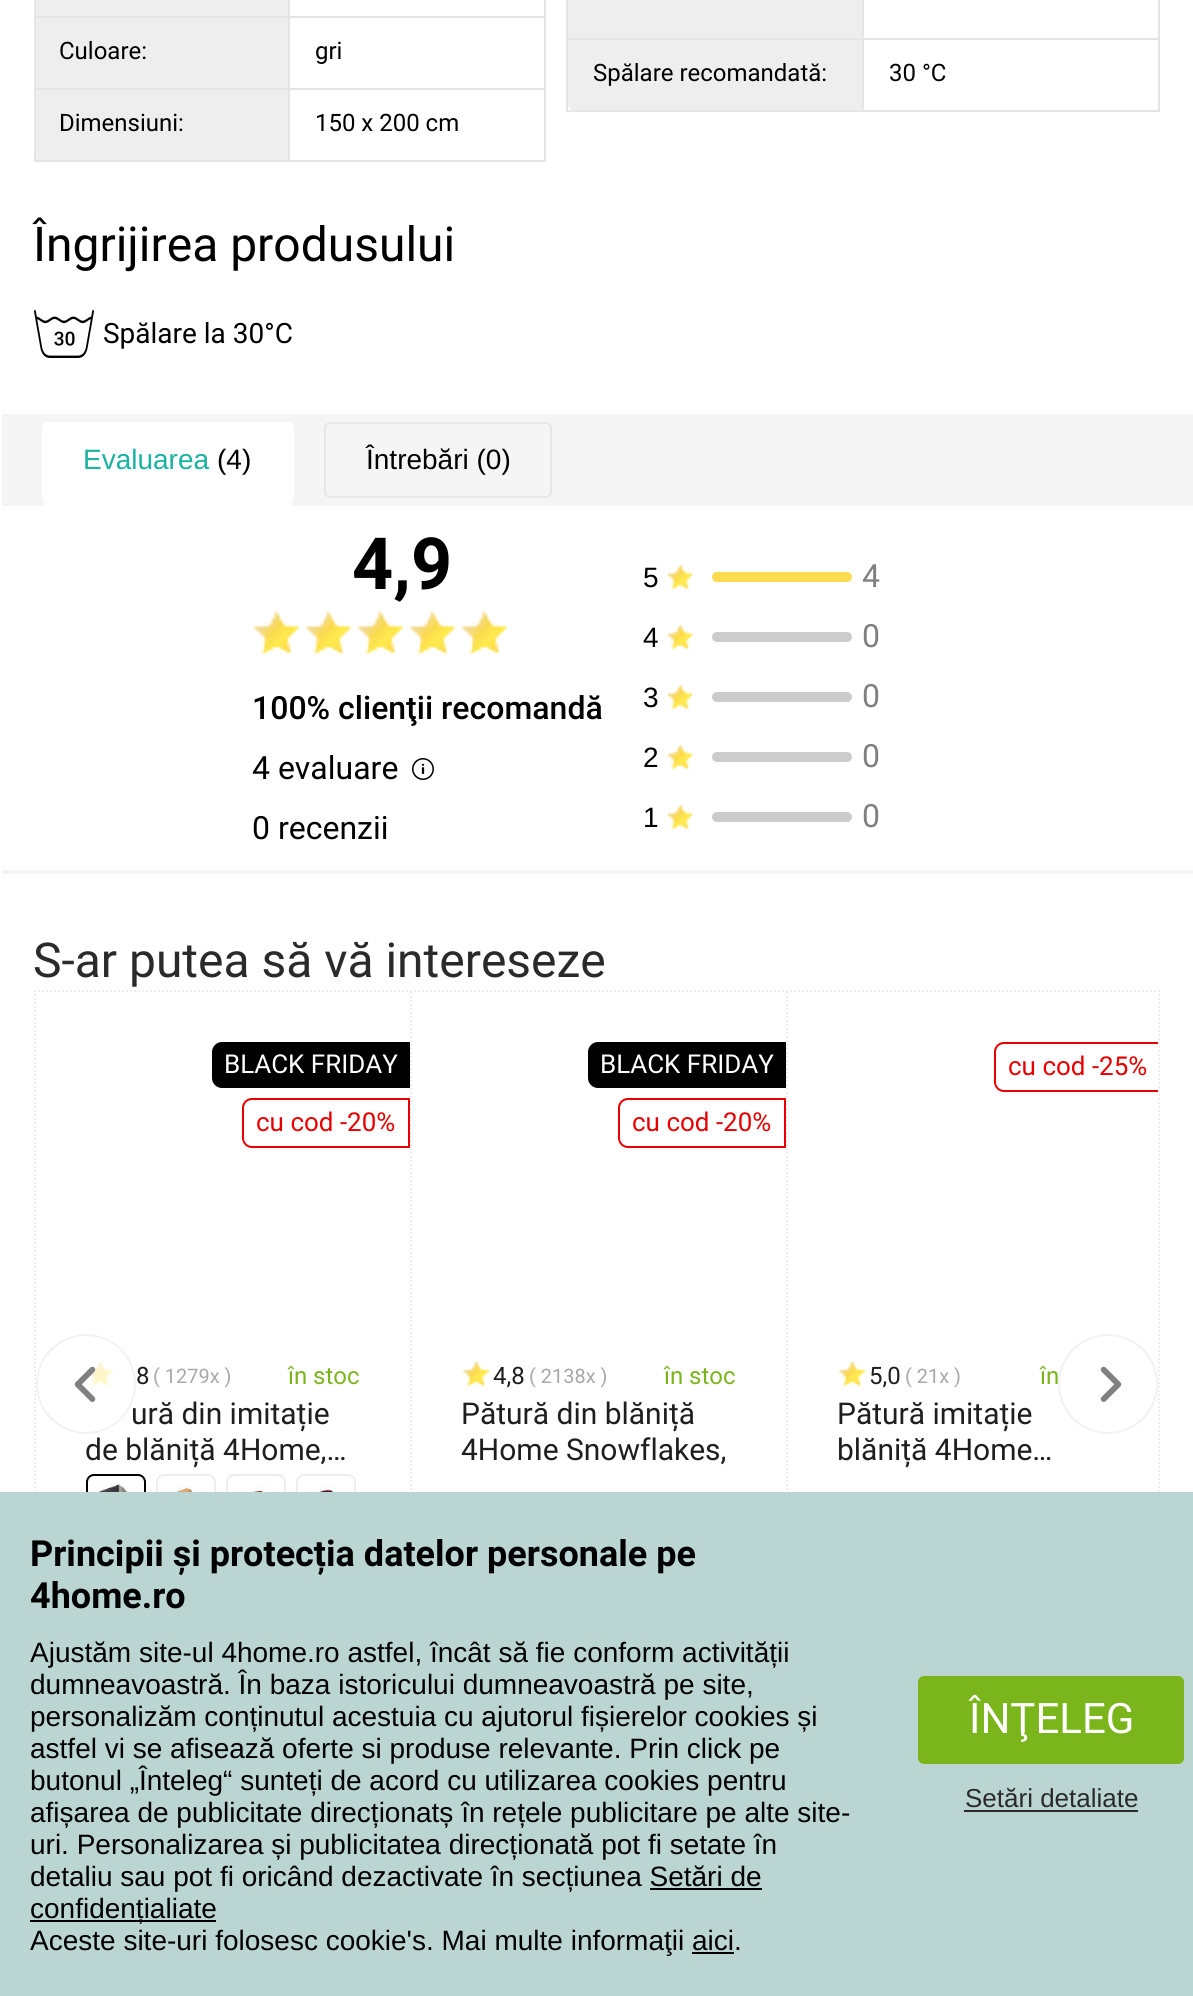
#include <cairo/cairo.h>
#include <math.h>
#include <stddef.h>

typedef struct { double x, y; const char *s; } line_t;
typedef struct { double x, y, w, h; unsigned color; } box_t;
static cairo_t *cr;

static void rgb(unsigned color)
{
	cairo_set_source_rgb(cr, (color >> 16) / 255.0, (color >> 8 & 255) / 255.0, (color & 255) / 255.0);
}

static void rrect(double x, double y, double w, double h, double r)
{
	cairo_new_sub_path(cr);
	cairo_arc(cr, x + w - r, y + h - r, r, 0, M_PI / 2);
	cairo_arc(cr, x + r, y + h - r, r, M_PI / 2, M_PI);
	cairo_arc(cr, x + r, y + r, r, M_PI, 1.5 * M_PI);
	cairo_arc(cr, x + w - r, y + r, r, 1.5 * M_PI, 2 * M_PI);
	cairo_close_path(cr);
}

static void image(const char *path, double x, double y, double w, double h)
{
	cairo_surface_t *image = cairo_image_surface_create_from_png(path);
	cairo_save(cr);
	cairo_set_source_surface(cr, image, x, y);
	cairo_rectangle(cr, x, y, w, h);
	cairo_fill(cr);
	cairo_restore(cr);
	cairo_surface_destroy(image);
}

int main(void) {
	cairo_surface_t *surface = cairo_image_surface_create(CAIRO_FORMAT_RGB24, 1193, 1996);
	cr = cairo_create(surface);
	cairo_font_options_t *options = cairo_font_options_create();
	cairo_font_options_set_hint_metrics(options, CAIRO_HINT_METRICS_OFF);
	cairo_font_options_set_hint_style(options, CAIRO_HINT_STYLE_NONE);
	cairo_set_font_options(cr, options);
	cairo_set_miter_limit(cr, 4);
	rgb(0xffffff);
	cairo_paint(cr);
	rgb(0xeeeeee);
	cairo_rectangle(cr, 36, 0, 252, 16);
	cairo_fill(cr);
	rgb(0xe5e5e5);
	cairo_rectangle(cr, 288, 16, 258, 2);
	cairo_fill(cr);
	rgb(0xeeeeee);
	cairo_new_path(cr);
	cairo_move_to(cr, 34, 88);
	cairo_line_to(cr, 290, 88);
	cairo_line_to(cr, 290, 160);
	cairo_line_to(cr, 40, 160);
	cairo_curve_to(cr, 36.5, 160, 34, 157.5, 34, 154);
	cairo_close_path(cr);
	cairo_fill(cr);
	{
		static const box_t items[] = {
			{288, 88, 258, 2, 0xe5e5e5},
			{544, 88, 2, 74, 0xe5e5e5},
			{288, 160, 258, 2, 0xe5e5e5},
			{288, 88, 2, 74, 0xe5e5e5},
			{34, 88, 256, 2, 0xe5e5e5},
			{288, 16, 2, 74, 0xe5e5e5},
			{34, 16, 256, 2, 0xe5e5e5},
			{288, 0, 2, 18, 0xe5e5e5},
			{36, 18, 252, 70, 0xeeeeee},
			{34, 160, 256, 2, 0xe5e5e5},
			{34, 88, 2, 74, 0xe5e5e5},
			{34, 0, 2, 90, 0xe5e5e5},
			{544, 0, 2, 90, 0xe5e5e5},
			{568, 0, 294, 38, 0xeeeeee},
		};
		for (size_t i = 0; i < sizeof items / sizeof *items; i++) {
			rgb(items[i].color);
			cairo_rectangle(cr, items[i].x, items[i].y, items[i].w, items[i].h);
			cairo_fill(cr);
		}
	}
	cairo_new_path(cr);
	cairo_move_to(cr, 568, 38);
	cairo_line_to(cr, 864, 38);
	cairo_line_to(cr, 864, 110);
	cairo_line_to(cr, 574, 110);
	cairo_curve_to(cr, 570.5, 110, 568, 107.5, 568, 104);
	cairo_close_path(cr);
	cairo_fill(cr);
	{
		static const box_t items[] = {
			{862, 38, 298, 2, 0xe5e5e5},
			{1158, 0, 2, 112, 0xe5e5e5},
			{862, 110, 298, 2, 0xe5e5e5},
			{862, 38, 2, 74, 0xe5e5e5},
			{566, 38, 298, 2, 0xe5e5e5},
			{862, 0, 2, 40, 0xe5e5e5},
			{566, 110, 298, 2, 0xe5e5e5},
			{566, 0, 2, 112, 0xe5e5e5},
		};
		for (size_t i = 0; i < sizeof items / sizeof *items; i++) {
			rgb(items[i].color);
			cairo_rectangle(cr, items[i].x, items[i].y, items[i].w, items[i].h);
			cairo_fill(cr);
		}
	}
	image("img/1.png", 34, 310, 60, 48);
	rgb(0xf5f5f5);
	cairo_rectangle(cr, 2, 414, 1191, 92);
	cairo_fill(cr);
	rgb(0xffffff);
	cairo_new_path(cr);
	cairo_move_to(cr, 48, 422);
	cairo_line_to(cr, 288, 422);
	cairo_curve_to(cr, 291.5, 422, 294, 424.5, 294, 428);
	cairo_line_to(cr, 294, 498);
	cairo_line_to(cr, 42, 498);
	cairo_line_to(cr, 42, 428);
	cairo_curve_to(cr, 42, 424.5, 44.5, 422, 48, 422);
	cairo_close_path(cr);
	cairo_fill(cr);
	cairo_rectangle(cr, 44, 498, 248, 8);
	cairo_fill(cr);
	rrect(325, 423, 226, 74, 5);
	rgb(0xe7e7e7);
	cairo_stroke(cr);
	image("img/2.png", 253, 610, 256, 45);
	image("img/3.png", 412, 758, 22, 22);
	image("img/4.png", 668, 564, 24, 27);
	rgb(0xfbdc50);
	rrect(712, 572, 140, 10, 5);
	cairo_fill(cr);
	image("img/4.png", 668, 624, 24, 27);
	rgb(0xcccccc);
	rrect(712, 632, 140, 10, 5);
	cairo_fill(cr);
	image("img/4.png", 668, 684, 24, 27);
	rrect(712, 692, 140, 10, 5);
	cairo_fill(cr);
	image("img/4.png", 668, 744, 24, 27);
	rrect(712, 752, 140, 10, 5);
	cairo_fill(cr);
	image("img/4.png", 668, 804, 24, 27);
	rrect(712, 812, 140, 10, 5);
	cairo_fill(cr);
	rgb(0xf5f5f5);
	cairo_rectangle(cr, 2, 870, 1191, 4);
	cairo_fill(cr);
	cairo_new_path(cr);
	cairo_move_to(cr, 34, 991);
	cairo_line_to(cr, 1160, 991);
	rgb(0xeeeeee);
	cairo_set_dash(cr, (double[]){2, 2}, 2, 0);
	cairo_stroke(cr);
	cairo_new_path(cr);
	cairo_move_to(cr, 1159, 990);
	cairo_line_to(cr, 1159, 1778);
	cairo_stroke(cr);
	cairo_new_path(cr);
	cairo_move_to(cr, 35, 990);
	cairo_line_to(cr, 35, 1778);
	cairo_stroke(cr);
	cairo_new_path(cr);
	cairo_move_to(cr, 411, 992);
	cairo_line_to(cr, 411, 1760);
	cairo_stroke(cr);
	rgb(0x000000);
	cairo_new_path(cr);
	cairo_move_to(cr, 222, 1042);
	cairo_line_to(cr, 410, 1042);
	cairo_line_to(cr, 410, 1088);
	cairo_line_to(cr, 222, 1088);
	cairo_curve_to(cr, 216.5, 1088, 212, 1083.5, 212, 1078);
	cairo_line_to(cr, 212, 1052);
	cairo_curve_to(cr, 212, 1046.5, 216.5, 1042, 222, 1042);
	cairo_close_path(cr);
	cairo_fill(cr);
	cairo_new_path(cr);
	cairo_move_to(cr, 252, 1099);
	cairo_line_to(cr, 409, 1099);
	cairo_line_to(cr, 409, 1147);
	cairo_line_to(cr, 252, 1147);
	cairo_curve_to(cr, 247, 1147, 243, 1143, 243, 1138);
	cairo_line_to(cr, 243, 1108);
	cairo_curve_to(cr, 243, 1103, 247, 1099, 252, 1099);
	cairo_close_path(cr);
	rgb(0xe60000);
	cairo_set_dash(cr, NULL, 0, 0);
	cairo_stroke(cr);
	image("img/5.png", 86, 1362, 28, 25);
	rrect(87, 1475, 58, 58, 7);
	rgb(0x000000);
	cairo_stroke(cr);
	image("img/6.png", 92, 1482, 48, 10);
	rrect(157, 1475, 58, 58, 7);
	rgb(0xeeeeee);
	cairo_stroke(cr);
	image("img/7.png", 162, 1486, 48, 6);
	rrect(227, 1475, 58, 58, 7);
	cairo_stroke(cr);
	image("img/8.png", 232, 1486, 47, 6);
	rrect(297, 1475, 58, 58, 7);
	cairo_stroke(cr);
	image("img/9.png", 302, 1486, 47, 6);
	cairo_new_path(cr);
	cairo_move_to(cr, 787, 992);
	cairo_line_to(cr, 787, 1760);
	cairo_set_dash(cr, (double[]){2, 2}, 2, 0);
	cairo_stroke(cr);
	rgb(0x000000);
	cairo_new_path(cr);
	cairo_move_to(cr, 598, 1042);
	cairo_line_to(cr, 786, 1042);
	cairo_line_to(cr, 786, 1088);
	cairo_line_to(cr, 598, 1088);
	cairo_curve_to(cr, 592.5, 1088, 588, 1083.5, 588, 1078);
	cairo_line_to(cr, 588, 1052);
	cairo_curve_to(cr, 588, 1046.5, 592.5, 1042, 598, 1042);
	cairo_close_path(cr);
	cairo_fill(cr);
	cairo_new_path(cr);
	cairo_move_to(cr, 628, 1099);
	cairo_line_to(cr, 785, 1099);
	cairo_line_to(cr, 785, 1147);
	cairo_line_to(cr, 628, 1147);
	cairo_curve_to(cr, 623, 1147, 619, 1143, 619, 1138);
	cairo_line_to(cr, 619, 1108);
	cairo_curve_to(cr, 619, 1103, 623, 1099, 628, 1099);
	cairo_close_path(cr);
	rgb(0xe60000);
	cairo_set_dash(cr, NULL, 0, 0);
	cairo_stroke(cr);
	image("img/5.png", 462, 1362, 28, 25);
	cairo_save(cr);
	cairo_rectangle(cr, 36, 992, 1122, 784);
	cairo_clip(cr);
	cairo_new_path(cr);
	cairo_move_to(cr, 1004, 1043);
	cairo_line_to(cr, 1161, 1043);
	cairo_line_to(cr, 1161, 1091);
	cairo_line_to(cr, 1004, 1091);
	cairo_curve_to(cr, 999, 1091, 995, 1087, 995, 1082);
	cairo_line_to(cr, 995, 1052);
	cairo_curve_to(cr, 995, 1047, 999, 1043, 1004, 1043);
	cairo_close_path(cr);
	cairo_stroke(cr);
	cairo_restore(cr);
	image("img/5.png", 838, 1362, 28, 25);
	image("img/11.png", 1100, 1366, 22, 36);
	cairo_arc(cr, 1108, 1384, 49, 0, 2 * M_PI);
	rgb(0xf2f2f2);
	cairo_stroke(cr);
	{
		static const box_t items[] = {
			{0, 1492, 1193, 504, 0xbbd5d2},
			{650, 1888, 112, 2, 0x000000},
			{30, 1920, 186, 2, 0x000000},
			{692, 1952, 42, 2, 0x000000},
		};
		for (size_t i = 0; i < sizeof items / sizeof *items; i++) {
			rgb(items[i].color);
			cairo_rectangle(cr, items[i].x, items[i].y, items[i].w, items[i].h);
			cairo_fill(cr);
		}
	}
	rgb(0x7ab51c);
	rrect(918, 1676, 266, 88, 6);
	cairo_fill(cr);
	rgb(0x2a2a2a);
	cairo_rectangle(cr, 964, 1810, 174, 2);
	cairo_fill(cr);
	cairo_select_font_face(cr, "Roboto", CAIRO_FONT_SLANT_NORMAL, CAIRO_FONT_WEIGHT_NORMAL);
	cairo_set_font_size(cr, 24);
	rgb(0x000000);
	{
		static const line_t items[] = {
			{59, 59, "Culoare:"},
			{315, 59, "gri"},
			{59, 131, "Dimensiuni:"},
			{315, 131, "150 x 200 cm"},
			{593, 81, "Spălare recomandată:"},
			{889, 81, "30 °C"},
		};
		for (size_t i = 0; i < sizeof items / sizeof *items; i++) {
			cairo_move_to(cr, items[i].x, items[i].y);
			cairo_show_text(cr, items[i].s);
		}
	}
	cairo_set_font_size(cr, 48);
	cairo_move_to(cr, 33, 261);
	cairo_show_text(cr, "Îngrijirea produsului");
	cairo_set_font_size(cr, 28);
	cairo_move_to(cr, 103, 343);
	cairo_show_text(cr, "Spălare la 30°C");
	cairo_select_font_face(cr, "Liberation Sans", CAIRO_FONT_SLANT_NORMAL, CAIRO_FONT_WEIGHT_NORMAL);
	rgb(0x1ab2a1);
	cairo_move_to(cr, 83, 469);
	cairo_show_text(cr, "Evaluarea");
	rgb(0x000000);
	cairo_move_to(cr, 217, 469);
	cairo_show_text(cr, "(4)");
	cairo_move_to(cr, 366, 469);
	cairo_show_text(cr, "Întrebări (0)");
	cairo_select_font_face(cr, "Roboto", CAIRO_FONT_SLANT_NORMAL, CAIRO_FONT_WEIGHT_BOLD);
	cairo_set_font_size(cr, 72);
	cairo_move_to(cr, 352, 589);
	cairo_show_text(cr, "4,9");
	cairo_select_font_face(cr, "Roboto Medium", CAIRO_FONT_SLANT_NORMAL, CAIRO_FONT_WEIGHT_NORMAL);
	cairo_set_font_size(cr, 32);
	cairo_move_to(cr, 252, 719);
	cairo_show_text(cr, "100% clienţii recomandă");
	cairo_select_font_face(cr, "Roboto", CAIRO_FONT_SLANT_NORMAL, CAIRO_FONT_WEIGHT_NORMAL);
	cairo_move_to(cr, 252, 779);
	cairo_show_text(cr, "4 evaluare");
	cairo_move_to(cr, 252, 839);
	cairo_show_text(cr, "0 recenzii");
	cairo_select_font_face(cr, "Liberation Sans", CAIRO_FONT_SLANT_NORMAL, CAIRO_FONT_WEIGHT_NORMAL);
	cairo_set_font_size(cr, 28);
	cairo_move_to(cr, 643, 587);
	cairo_show_text(cr, "5");
	cairo_select_font_face(cr, "Roboto", CAIRO_FONT_SLANT_NORMAL, CAIRO_FONT_WEIGHT_NORMAL);
	cairo_set_font_size(cr, 32);
	rgb(0x7f7f7f);
	cairo_move_to(cr, 862, 587);
	cairo_show_text(cr, "4");
	cairo_select_font_face(cr, "Liberation Sans", CAIRO_FONT_SLANT_NORMAL, CAIRO_FONT_WEIGHT_NORMAL);
	cairo_set_font_size(cr, 28);
	rgb(0x000000);
	cairo_move_to(cr, 643, 647);
	cairo_show_text(cr, "4");
	cairo_select_font_face(cr, "Roboto", CAIRO_FONT_SLANT_NORMAL, CAIRO_FONT_WEIGHT_NORMAL);
	cairo_set_font_size(cr, 32);
	rgb(0x7f7f7f);
	cairo_move_to(cr, 862, 647);
	cairo_show_text(cr, "0");
	cairo_select_font_face(cr, "Liberation Sans", CAIRO_FONT_SLANT_NORMAL, CAIRO_FONT_WEIGHT_NORMAL);
	cairo_set_font_size(cr, 28);
	rgb(0x000000);
	cairo_move_to(cr, 643, 707);
	cairo_show_text(cr, "3");
	cairo_select_font_face(cr, "Roboto", CAIRO_FONT_SLANT_NORMAL, CAIRO_FONT_WEIGHT_NORMAL);
	cairo_set_font_size(cr, 32);
	rgb(0x7f7f7f);
	cairo_move_to(cr, 862, 707);
	cairo_show_text(cr, "0");
	cairo_select_font_face(cr, "Liberation Sans", CAIRO_FONT_SLANT_NORMAL, CAIRO_FONT_WEIGHT_NORMAL);
	cairo_set_font_size(cr, 28);
	rgb(0x000000);
	cairo_move_to(cr, 643, 767);
	cairo_show_text(cr, "2");
	cairo_select_font_face(cr, "Roboto", CAIRO_FONT_SLANT_NORMAL, CAIRO_FONT_WEIGHT_NORMAL);
	cairo_set_font_size(cr, 32);
	rgb(0x7f7f7f);
	cairo_move_to(cr, 862, 767);
	cairo_show_text(cr, "0");
	cairo_select_font_face(cr, "Liberation Sans", CAIRO_FONT_SLANT_NORMAL, CAIRO_FONT_WEIGHT_NORMAL);
	cairo_set_font_size(cr, 28);
	rgb(0x000000);
	cairo_move_to(cr, 643, 827);
	cairo_show_text(cr, "1");
	cairo_select_font_face(cr, "Roboto", CAIRO_FONT_SLANT_NORMAL, CAIRO_FONT_WEIGHT_NORMAL);
	cairo_set_font_size(cr, 32);
	rgb(0x7f7f7f);
	cairo_move_to(cr, 862, 827);
	cairo_show_text(cr, "0");
	cairo_set_font_size(cr, 48);
	rgb(0x2a2a2a);
	cairo_move_to(cr, 33, 977);
	cairo_show_text(cr, "S-ar putea să vă intereseze");
	cairo_set_font_size(cr, 26);
	rgb(0xffffff);
	cairo_move_to(cr, 224, 1073);
	cairo_show_text(cr, "BLACK FRIDAY");
	rgb(0xe60000);
	cairo_move_to(cr, 256, 1131);
	cairo_show_text(cr, "cu cod -20%");
	cairo_set_font_size(cr, 24);
	rgb(0x1e1e1e);
	cairo_move_to(cr, 136, 1384);
	cairo_show_text(cr, "8");
	cairo_set_font_size(cr, 20);
	rgb(0xa8a8a8);
	cairo_move_to(cr, 153, 1383);
	cairo_show_text(cr, "( 1279x )");
	cairo_set_font_size(cr, 24);
	rgb(0x7ab51c);
	cairo_move_to(cr, 288, 1384);
	cairo_show_text(cr, "în stoc");
	cairo_set_font_size(cr, 30);
	rgb(0x1e1e1e);
	cairo_move_to(cr, 131, 1424);
	cairo_show_text(cr, "ură din imitație");
	cairo_move_to(cr, 85, 1460);
	cairo_show_text(cr, "de blăniță 4Home,…");
	cairo_set_font_size(cr, 26);
	rgb(0xffffff);
	cairo_move_to(cr, 600, 1073);
	cairo_show_text(cr, "BLACK FRIDAY");
	rgb(0xe60000);
	cairo_move_to(cr, 632, 1131);
	cairo_show_text(cr, "cu cod -20%");
	cairo_set_font_size(cr, 24);
	rgb(0x1e1e1e);
	cairo_move_to(cr, 493, 1384);
	cairo_show_text(cr, "4,8");
	cairo_set_font_size(cr, 20);
	rgb(0xa8a8a8);
	cairo_move_to(cr, 529, 1383);
	cairo_show_text(cr, "( 2138x )");
	cairo_set_font_size(cr, 24);
	rgb(0x7ab51c);
	cairo_move_to(cr, 664, 1384);
	cairo_show_text(cr, "în stoc");
	cairo_set_font_size(cr, 30);
	rgb(0x1e1e1e);
	cairo_move_to(cr, 461, 1424);
	cairo_show_text(cr, "Pătură din blăniță");
	cairo_move_to(cr, 461, 1460);
	cairo_show_text(cr, "4Home Snowflakes,");
	cairo_set_font_size(cr, 26);
	rgb(0xe60000);
	cairo_move_to(cr, 1008, 1075);
	cairo_show_text(cr, "cu cod -25%");
	cairo_set_font_size(cr, 24);
	rgb(0x1e1e1e);
	cairo_move_to(cr, 869, 1384);
	cairo_show_text(cr, "5,0");
	cairo_set_font_size(cr, 20);
	rgb(0xa8a8a8);
	cairo_move_to(cr, 905, 1383);
	cairo_show_text(cr, "( 21x )");
	cairo_set_font_size(cr, 24);
	rgb(0x7ab51c);
	cairo_move_to(cr, 1040, 1384);
	cairo_show_text(cr, "în");
	cairo_set_font_size(cr, 30);
	rgb(0x1e1e1e);
	cairo_move_to(cr, 837, 1424);
	cairo_show_text(cr, "Pătură imitație");
	cairo_move_to(cr, 837, 1460);
	cairo_show_text(cr, "blăniță 4Home…");
	cairo_set_source_rgba(cr, 1, 1, 1, 0.7);
	cairo_new_path(cr);
	cairo_arc(cr, 86, 1384, 50, 0, 2 * M_PI);
	cairo_fill(cr);
	image("img/10.png", 74, 1366, 22, 36);
	cairo_arc(cr, 86, 1384, 49, 0, 2 * M_PI);
	rgb(0xf2f2f2);
	cairo_stroke(cr);
	cairo_select_font_face(cr, "Roboto", CAIRO_FONT_SLANT_NORMAL, CAIRO_FONT_WEIGHT_BOLD);
	cairo_set_font_size(cr, 36);
	rgb(0x000000);
	cairo_move_to(cr, 30, 1566);
	cairo_show_text(cr, "Principii și protecția datelor personale pe");
	cairo_move_to(cr, 30, 1608);
	cairo_show_text(cr, "4home.ro");
	cairo_select_font_face(cr, "Liberation Sans", CAIRO_FONT_SLANT_NORMAL, CAIRO_FONT_WEIGHT_NORMAL);
	cairo_set_font_size(cr, 28);
	{
		static const line_t items[] = {
			{30, 1662, "Ajustăm site-ul 4home.ro astfel, încât să fie conform activității"},
			{30, 1694, "dumneavoastră. În baza istoricului dumneavoastră pe site,"},
			{30, 1726, "personalizăm conținutul acestuia cu ajutorul fișierelor cookies și"},
			{30, 1758, "astfel vi se afisează oferte si produse relevante. Prin click pe"},
			{30, 1790, "butonul „Înteleg“ sunteți de acord cu utilizarea cookies pentru"},
			{30, 1822, "afișarea de publicitate direcționatș în rețele publicitare pe alte site-"},
			{30, 1854, "uri. Personalizarea și publicitatea direcționată pot fi setate în"},
			{30, 1886, "detaliu sau pot fi oricând dezactivate în secțiunea Setări de"},
			{30, 1918, "confidențialiate"},
			{30, 1950, "Aceste site-uri folosesc cookie's. Mai multe informaţii aici."},
		};
		for (size_t i = 0; i < sizeof items / sizeof *items; i++) {
			cairo_move_to(cr, items[i].x, items[i].y);
			cairo_show_text(cr, items[i].s);
		}
	}
	cairo_select_font_face(cr, "Roboto", CAIRO_FONT_SLANT_NORMAL, CAIRO_FONT_WEIGHT_NORMAL);
	cairo_set_font_size(cr, 42);
	rgb(0xffffff);
	cairo_move_to(cr, 969, 1733);
	cairo_show_text(cr, "ÎNŢELEG");
	cairo_select_font_face(cr, "Liberation Sans", CAIRO_FONT_SLANT_NORMAL, CAIRO_FONT_WEIGHT_NORMAL);
	cairo_set_font_size(cr, 26);
	rgb(0x2a2a2a);
	cairo_move_to(cr, 965, 1807);
	cairo_show_text(cr, "Setări detaliate");
	cairo_surface_write_to_png(surface, "page.png");
	cairo_font_options_destroy(options);
	cairo_destroy(cr);
	cairo_surface_destroy(surface);
	return 0;
}
